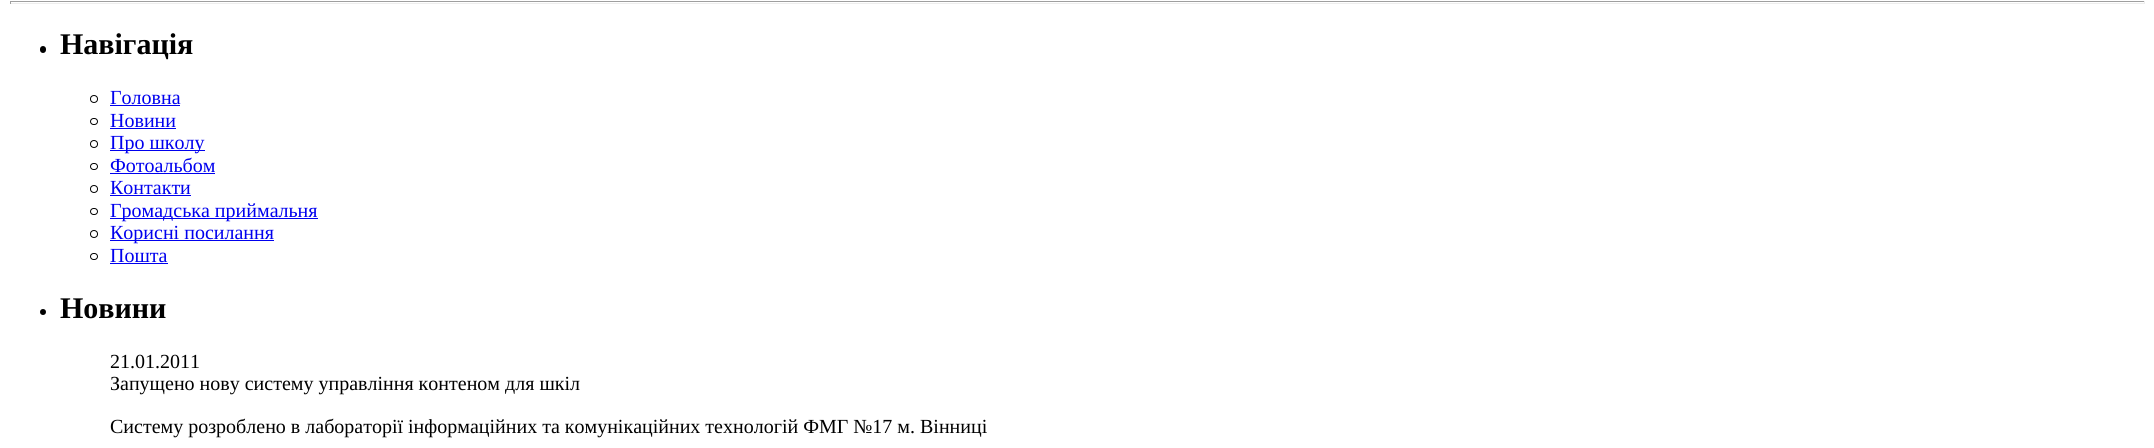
#include <cairo/cairo.h>
#include <math.h>
#include <stddef.h>

typedef struct { double x, y; const char *s; } line_t;
typedef struct { double x, y, w, h; unsigned color; } box_t;
static cairo_t *cr;

static void rgb(unsigned color)
{
	cairo_set_source_rgb(cr, (color >> 16) / 255.0, (color >> 8 & 255) / 255.0, (color & 255) / 255.0);
}

static void rrect(double x, double y, double w, double h, double r)
{
	cairo_new_sub_path(cr);
	cairo_arc(cr, x + w - r, y + h - r, r, 0, M_PI / 2);
	cairo_arc(cr, x + r, y + h - r, r, M_PI / 2, M_PI);
	cairo_arc(cr, x + r, y + r, r, M_PI, 1.5 * M_PI);
	cairo_arc(cr, x + w - r, y + r, r, 1.5 * M_PI, 2 * M_PI);
	cairo_close_path(cr);
}

int main(void) {
	cairo_surface_t *surface = cairo_image_surface_create(CAIRO_FORMAT_RGB24, 2154, 448);
	cr = cairo_create(surface);
	cairo_font_options_t *options = cairo_font_options_create();
	cairo_font_options_set_hint_metrics(options, CAIRO_HINT_METRICS_OFF);
	cairo_font_options_set_hint_style(options, CAIRO_HINT_STYLE_NONE);
	cairo_set_font_options(cr, options);
	cairo_set_miter_limit(cr, 4);
	rgb(0xffffff);
	cairo_paint(cr);
	{
		static const box_t items[] = {
			{10, 1, 2135, 1, 0x9f9f9f},
			{2144, 1, 1, 3, 0xeeeeee},
			{10, 3, 2135, 1, 0xeeeeee},
			{10, 1, 1, 3, 0x9f9f9f},
		};
		for (size_t i = 0; i < sizeof items / sizeof *items; i++) {
			rgb(items[i].color);
			cairo_rectangle(cr, items[i].x, items[i].y, items[i].w, items[i].h);
			cairo_fill(cr);
		}
	}
	rgb(0x000000);
	rrect(40, 46, 6, 7, 3);
	cairo_fill(cr);
	cairo_arc(cr, 94, 99, 3.5, 0, 2 * M_PI);
	cairo_set_line_width(cr, 1);
	cairo_stroke(cr);
	rgb(0x0000ee);
	cairo_rectangle(cr, 110, 105, 70, 1);
	cairo_fill(cr);
	rrect(90.5, 118.5, 7, 6, 3);
	rgb(0x000000);
	cairo_stroke(cr);
	rgb(0x0000ee);
	cairo_rectangle(cr, 110, 128, 66, 1);
	cairo_fill(cr);
	cairo_arc(cr, 94, 144, 3.5, 0, 2 * M_PI);
	rgb(0x000000);
	cairo_stroke(cr);
	rgb(0x0000ee);
	cairo_rectangle(cr, 110, 150, 95, 1);
	cairo_fill(cr);
	rrect(90.5, 163.5, 7, 6, 3);
	rgb(0x000000);
	cairo_stroke(cr);
	rgb(0x0000ee);
	cairo_rectangle(cr, 110, 173, 105, 1);
	cairo_fill(cr);
	cairo_arc(cr, 94, 189, 3.5, 0, 2 * M_PI);
	rgb(0x000000);
	cairo_stroke(cr);
	rgb(0x0000ee);
	cairo_rectangle(cr, 110, 195, 81, 1);
	cairo_fill(cr);
	rrect(90.5, 208.5, 7, 6, 3);
	rgb(0x000000);
	cairo_stroke(cr);
	rgb(0x0000ee);
	cairo_rectangle(cr, 110, 218, 208, 1);
	cairo_fill(cr);
	cairo_arc(cr, 94, 234, 3.5, 0, 2 * M_PI);
	rgb(0x000000);
	cairo_stroke(cr);
	rgb(0x0000ee);
	cairo_rectangle(cr, 110, 240, 164, 1);
	cairo_fill(cr);
	rrect(90.5, 253.5, 7, 6, 3);
	rgb(0x000000);
	cairo_stroke(cr);
	rgb(0x0000ee);
	cairo_rectangle(cr, 110, 263, 58, 1);
	cairo_fill(cr);
	rgb(0x000000);
	cairo_arc(cr, 43, 312, 3, 0, 2 * M_PI);
	cairo_fill(cr);
	cairo_select_font_face(cr, "Liberation Serif", CAIRO_FONT_SLANT_NORMAL, CAIRO_FONT_WEIGHT_BOLD);
	cairo_set_font_size(cr, 30);
	cairo_move_to(cr, 60, 54);
	cairo_show_text(cr, "Навігація");
	cairo_select_font_face(cr, "Liberation Serif", CAIRO_FONT_SLANT_NORMAL, CAIRO_FONT_WEIGHT_NORMAL);
	cairo_set_font_size(cr, 20);
	rgb(0x0000ee);
	{
		static const line_t items[] = {
			{110, 104, "Головна"},
			{110, 127, "Новини"},
			{110, 149, "Про школу"},
			{110, 172, "Фотоальбом"},
			{110, 194, "Контакти"},
			{110, 217, "Громадська приймальня"},
			{110, 239, "Корисні посилання"},
			{110, 262, "Пошта"},
		};
		for (size_t i = 0; i < sizeof items / sizeof *items; i++) {
			cairo_move_to(cr, items[i].x, items[i].y);
			cairo_show_text(cr, items[i].s);
		}
	}
	cairo_select_font_face(cr, "Liberation Serif", CAIRO_FONT_SLANT_NORMAL, CAIRO_FONT_WEIGHT_BOLD);
	cairo_set_font_size(cr, 30);
	rgb(0x000000);
	cairo_move_to(cr, 60, 318);
	cairo_show_text(cr, "Новини");
	cairo_select_font_face(cr, "Liberation Serif", CAIRO_FONT_SLANT_NORMAL, CAIRO_FONT_WEIGHT_NORMAL);
	cairo_set_font_size(cr, 20);
	{
		static const line_t items[] = {
			{110, 368, "21.01.2011"},
			{110, 390, "Запущено нову систему управління контеном для шкіл"},
			{110, 433, "Систему розроблено в лабораторії інформаційних та комунікаційних технологій ФМГ №17 м. Вінниці"},
		};
		for (size_t i = 0; i < sizeof items / sizeof *items; i++) {
			cairo_move_to(cr, items[i].x, items[i].y);
			cairo_show_text(cr, items[i].s);
		}
	}
	cairo_surface_write_to_png(surface, "page.png");
	cairo_font_options_destroy(options);
	cairo_destroy(cr);
	cairo_surface_destroy(surface);
	return 0;
}
